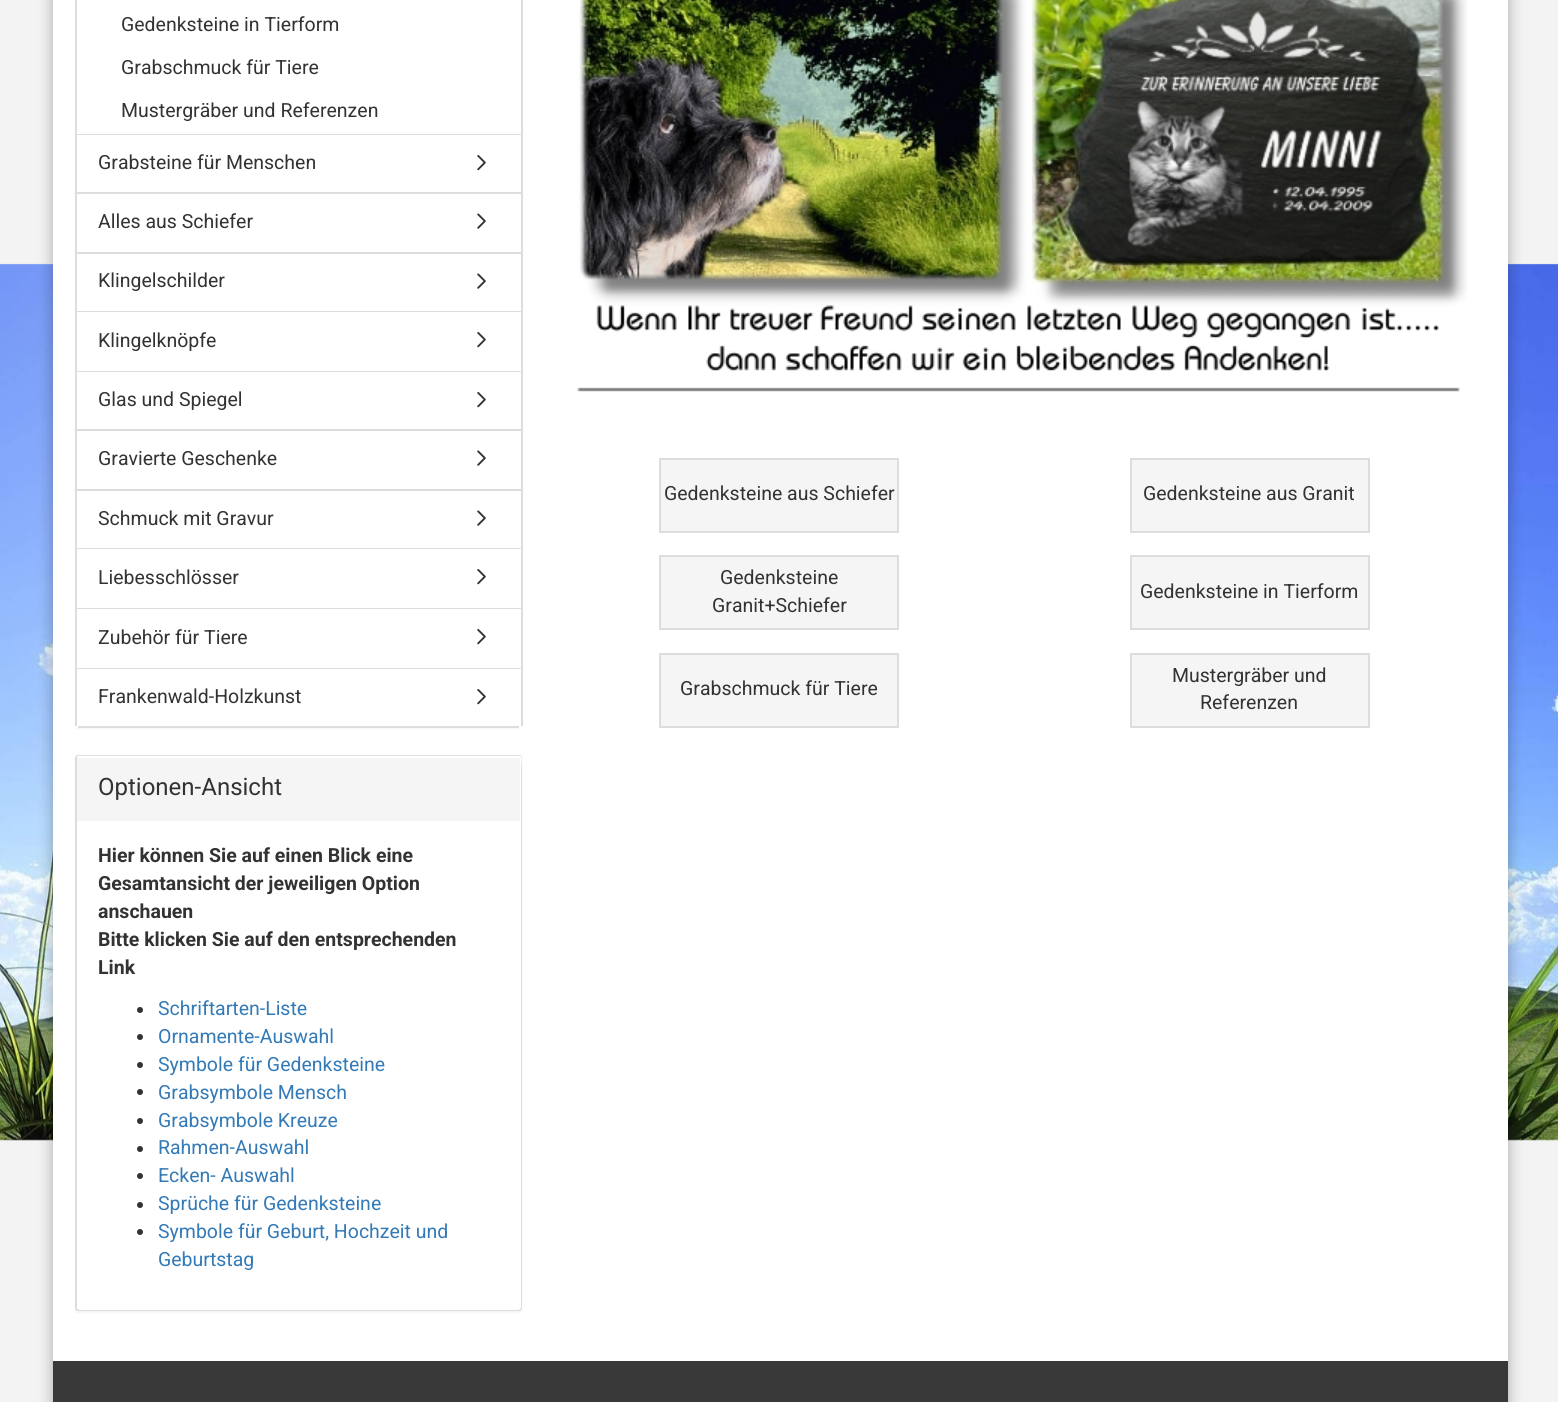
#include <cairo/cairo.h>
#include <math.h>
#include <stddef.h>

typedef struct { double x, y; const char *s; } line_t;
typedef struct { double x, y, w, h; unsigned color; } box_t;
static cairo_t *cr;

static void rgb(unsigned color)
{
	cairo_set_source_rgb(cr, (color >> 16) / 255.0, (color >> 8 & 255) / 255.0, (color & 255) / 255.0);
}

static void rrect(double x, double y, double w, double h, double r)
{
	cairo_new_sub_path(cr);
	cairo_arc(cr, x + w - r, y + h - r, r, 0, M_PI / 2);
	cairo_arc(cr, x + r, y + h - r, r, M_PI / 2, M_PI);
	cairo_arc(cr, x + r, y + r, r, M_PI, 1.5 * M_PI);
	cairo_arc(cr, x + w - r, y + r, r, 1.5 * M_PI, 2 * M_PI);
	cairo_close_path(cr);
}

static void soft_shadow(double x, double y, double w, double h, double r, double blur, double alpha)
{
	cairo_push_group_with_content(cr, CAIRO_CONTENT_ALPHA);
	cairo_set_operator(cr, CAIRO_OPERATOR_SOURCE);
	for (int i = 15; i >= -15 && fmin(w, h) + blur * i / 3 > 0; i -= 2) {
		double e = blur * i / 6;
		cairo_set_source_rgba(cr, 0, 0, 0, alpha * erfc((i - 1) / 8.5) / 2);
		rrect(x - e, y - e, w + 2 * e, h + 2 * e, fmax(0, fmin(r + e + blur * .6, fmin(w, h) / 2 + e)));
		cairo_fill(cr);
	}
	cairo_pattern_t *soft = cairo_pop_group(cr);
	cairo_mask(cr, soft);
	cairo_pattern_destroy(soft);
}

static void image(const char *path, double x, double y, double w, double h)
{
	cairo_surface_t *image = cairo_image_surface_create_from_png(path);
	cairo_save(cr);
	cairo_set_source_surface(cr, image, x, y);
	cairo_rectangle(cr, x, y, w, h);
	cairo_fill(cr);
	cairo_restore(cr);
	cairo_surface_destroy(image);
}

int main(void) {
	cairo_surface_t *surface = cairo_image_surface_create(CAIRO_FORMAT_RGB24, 1558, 1402);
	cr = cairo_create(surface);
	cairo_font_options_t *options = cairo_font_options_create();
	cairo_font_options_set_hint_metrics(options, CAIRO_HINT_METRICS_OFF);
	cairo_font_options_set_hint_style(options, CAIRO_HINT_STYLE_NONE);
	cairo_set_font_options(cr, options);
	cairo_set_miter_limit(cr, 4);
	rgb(0xf3f3f3);
	cairo_paint(cr);
	image("img/1.png", 0, 263, 1558, 878);
	rgb(0x000000);
	soft_shadow(53, -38, 1455, 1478, 15, 7.5, 0.3);
	rgb(0xffffff);
	cairo_rectangle(cr, 53, 0, 1455, 1361);
	cairo_fill(cr);
	rgb(0x000000);
	soft_shadow(75, -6, 447, 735, 3, 1, 0.05);
	rgb(0xffffff);
	rrect(75, -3, 447, 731, 3);
	cairo_fill(cr);
	{
		static const box_t items[] = {
			{521, 0, 2, 726, 0xdddddd},
			{75, 0, 2, 726, 0xdddddd},
			{77, 134, 444, 1, 0xdddddd},
			{77, 192, 444, 2, 0xdddddd},
		};
		for (size_t i = 0; i < sizeof items / sizeof *items; i++) {
			rgb(items[i].color);
			cairo_rectangle(cr, items[i].x, items[i].y, items[i].w, items[i].h);
			cairo_fill(cr);
		}
	}
	image("img/2.png", 477, 155, 9, 16);
	cairo_rectangle(cr, 77, 252, 444, 2);
	cairo_fill(cr);
	image("img/3.png", 477, 213, 9, 16);
	cairo_rectangle(cr, 77, 311, 444, 1);
	cairo_fill(cr);
	image("img/3.png", 477, 273, 9, 16);
	cairo_rectangle(cr, 77, 371, 444, 1);
	cairo_fill(cr);
	image("img/2.png", 477, 332, 9, 16);
	cairo_rectangle(cr, 77, 429, 444, 2);
	cairo_fill(cr);
	image("img/2.png", 477, 392, 9, 16);
	cairo_rectangle(cr, 77, 489, 444, 2);
	cairo_fill(cr);
	image("img/3.png", 477, 450, 9, 16);
	cairo_rectangle(cr, 77, 548, 444, 1);
	cairo_fill(cr);
	image("img/3.png", 477, 510, 9, 16);
	cairo_rectangle(cr, 77, 608, 444, 1);
	cairo_fill(cr);
	image("img/2.png", 477, 569, 9, 16);
	cairo_rectangle(cr, 77, 668, 444, 1);
	cairo_fill(cr);
	image("img/2.png", 477, 629, 9, 16);
	cairo_rectangle(cr, 78, 726, 441, 2);
	cairo_fill(cr);
	image("img/2.png", 477, 689, 9, 16);
	rgb(0x000000);
	soft_shadow(75, 756, 447, 557, 3, 1, 0.05);
	rgb(0xffffff);
	rrect(76, 756, 445, 554, 2);
	cairo_fill_preserve(cr);
	rgb(0xdddddd);
	cairo_stroke(cr);
	rgb(0xf5f5f5);
	cairo_new_path(cr);
	cairo_move_to(cr, 78.5, 756);
	cairo_line_to(cr, 519.5, 756);
	cairo_curve_to(cr, 520.5, 756, 521, 756.5, 521, 757.5);
	cairo_line_to(cr, 521, 821);
	cairo_line_to(cr, 77, 821);
	cairo_line_to(cr, 77, 757.5);
	cairo_curve_to(cr, 77, 756.5, 77.5, 756, 78.5, 756);
	cairo_close_path(cr);
	cairo_fill(cr);
	rgb(0xffffff);
	cairo_new_path(cr);
	cairo_move_to(cr, 78, 758);
	cairo_line_to(cr, 519, 758);
	cairo_curve_to(cr, 520, 758, 520, 758, 520, 759);
	cairo_line_to(cr, 520, 821);
	cairo_line_to(cr, 521, 821);
	cairo_line_to(cr, 521, 768);
	cairo_curve_to(cr, 521, 766, 523, 756, 520, 756);
	cairo_line_to(cr, 78, 756);
	cairo_line_to(cr, 77, 758);
	cairo_close_path(cr);
	cairo_fill(cr);
	cairo_new_path(cr);
	cairo_move_to(cr, 77, 821);
	cairo_line_to(cr, 521, 821);
	cairo_line_to(cr, 521, 1307);
	cairo_curve_to(cr, 521, 1308.5, 519.5, 1310, 518, 1310);
	cairo_line_to(cr, 80, 1310);
	cairo_curve_to(cr, 78.5, 1310, 77, 1308.5, 77, 1307);
	cairo_close_path(cr);
	cairo_fill(cr);
	rgb(0x333333);
	cairo_arc(cr, 140, 1010, 3, 0, 2 * M_PI);
	cairo_fill(cr);
	cairo_arc(cr, 140, 1037, 3, 0, 2 * M_PI);
	cairo_fill(cr);
	cairo_arc(cr, 140, 1065, 3, 0, 2 * M_PI);
	cairo_fill(cr);
	cairo_arc(cr, 140, 1092, 3, 0, 2 * M_PI);
	cairo_fill(cr);
	cairo_arc(cr, 140, 1121, 3, 0, 2 * M_PI);
	cairo_fill(cr);
	cairo_arc(cr, 140, 1149, 3, 0, 2 * M_PI);
	cairo_fill(cr);
	cairo_arc(cr, 140, 1176, 3, 0, 2 * M_PI);
	cairo_fill(cr);
	cairo_arc(cr, 140, 1205, 3, 0, 2 * M_PI);
	cairo_fill(cr);
	cairo_arc(cr, 140, 1232, 3, 0, 2 * M_PI);
	cairo_fill(cr);
	image("img/4.png", 577, 0, 890, 392);
	rgb(0xf5f5f5);
	cairo_rectangle(cr, 660, 459, 238, 73);
	cairo_fill_preserve(cr);
	rgb(0xdddddd);
	cairo_stroke(cr);
	rgb(0xf5f5f5);
	cairo_rectangle(cr, 1131, 459, 238, 73);
	cairo_fill_preserve(cr);
	rgb(0xdddddd);
	cairo_stroke(cr);
	rgb(0xf5f5f5);
	cairo_rectangle(cr, 660, 556, 238, 73);
	cairo_fill_preserve(cr);
	rgb(0xdddddd);
	cairo_stroke(cr);
	rgb(0xf5f5f5);
	cairo_rectangle(cr, 1131, 556, 238, 73);
	cairo_fill_preserve(cr);
	rgb(0xdddddd);
	cairo_stroke(cr);
	rgb(0xf5f5f5);
	cairo_rectangle(cr, 660, 654, 238, 73);
	cairo_fill_preserve(cr);
	rgb(0xdddddd);
	cairo_stroke(cr);
	rgb(0xf5f5f5);
	cairo_rectangle(cr, 1131, 654, 238, 73);
	cairo_fill_preserve(cr);
	rgb(0xdddddd);
	cairo_stroke(cr);
	rgb(0x393939);
	cairo_rectangle(cr, 53, 1361, 1455, 41);
	cairo_fill(cr);
	cairo_select_font_face(cr, "Roboto", CAIRO_FONT_SLANT_NORMAL, CAIRO_FONT_WEIGHT_NORMAL);
	cairo_set_font_size(cr, 19.5);
	rgb(0x333333);
	{
		static const line_t items[] = {
			{121, 31, "Gedenksteine in Tierform"},
			{121, 74, "Grabschmuck für Tiere"},
			{121, 117, "Mustergräber und Referenzen"},
			{98, 169, "Grabsteine für Menschen"},
			{98, 228, "Alles aus Schiefer"},
			{98, 287, "Klingelschilder"},
			{98, 347, "Klingelknöpfe"},
			{98, 406, "Glas und Spiegel"},
			{98, 465, "Gravierte Geschenke"},
			{98, 525, "Schmuck mit Gravur"},
			{98, 584, "Liebesschlösser"},
			{98, 644, "Zubehör für Tiere"},
			{98, 703, "Frankenwald-Holzkunst"},
		};
		for (size_t i = 0; i < sizeof items / sizeof *items; i++) {
			cairo_move_to(cr, items[i].x, items[i].y);
			cairo_show_text(cr, items[i].s);
		}
	}
	cairo_set_font_size(cr, 24);
	cairo_move_to(cr, 98, 795);
	cairo_show_text(cr, "Optionen-Ansicht");
	cairo_select_font_face(cr, "Roboto", CAIRO_FONT_SLANT_NORMAL, CAIRO_FONT_WEIGHT_BOLD);
	cairo_set_font_size(cr, 19.5);
	{
		static const line_t items[] = {
			{98, 862, "Hier können Sie auf einen Blick eine"},
			{98, 890, "Gesamtansicht der jeweiligen Option"},
			{98, 918, "anschauen"},
			{98, 946, "Bitte klicken Sie auf den entsprechenden"},
			{98, 974, "Link"},
		};
		for (size_t i = 0; i < sizeof items / sizeof *items; i++) {
			cairo_move_to(cr, items[i].x, items[i].y);
			cairo_show_text(cr, items[i].s);
		}
	}
	cairo_select_font_face(cr, "Roboto", CAIRO_FONT_SLANT_NORMAL, CAIRO_FONT_WEIGHT_NORMAL);
	rgb(0x337ab7);
	{
		static const line_t items[] = {
			{158, 1015, "Schriftarten-Liste"},
			{158, 1043, "Ornamente-Auswahl"},
			{158, 1071, "Symbole für Gedenksteine"},
			{158, 1099, "Grabsymbole Mensch"},
			{158, 1127, "Grabsymbole Kreuze"},
			{158, 1154, "Rahmen-Auswahl"},
			{158, 1182, "Ecken- Auswahl"},
			{158, 1210, "Sprüche für Gedenksteine"},
			{158, 1238, "Symbole für Geburt, Hochzeit und"},
			{158, 1266, "Geburtstag"},
		};
		for (size_t i = 0; i < sizeof items / sizeof *items; i++) {
			cairo_move_to(cr, items[i].x, items[i].y);
			cairo_show_text(cr, items[i].s);
		}
	}
	rgb(0x333333);
	{
		static const line_t items[] = {
			{664, 500, "Gedenksteine aus Schiefer"},
			{1143, 500, "Gedenksteine aus Granit"},
			{720, 584, "Gedenksteine"},
			{712, 612, "Granit+Schiefer"},
			{1140, 598, "Gedenksteine in Tierform"},
			{680, 695, "Grabschmuck für Tiere"},
			{1172, 682, "Mustergräber und"},
			{1200, 709, "Referenzen"},
		};
		for (size_t i = 0; i < sizeof items / sizeof *items; i++) {
			cairo_move_to(cr, items[i].x, items[i].y);
			cairo_show_text(cr, items[i].s);
		}
	}
	cairo_surface_write_to_png(surface, "page.png");
	cairo_font_options_destroy(options);
	cairo_destroy(cr);
	cairo_surface_destroy(surface);
	return 0;
}
